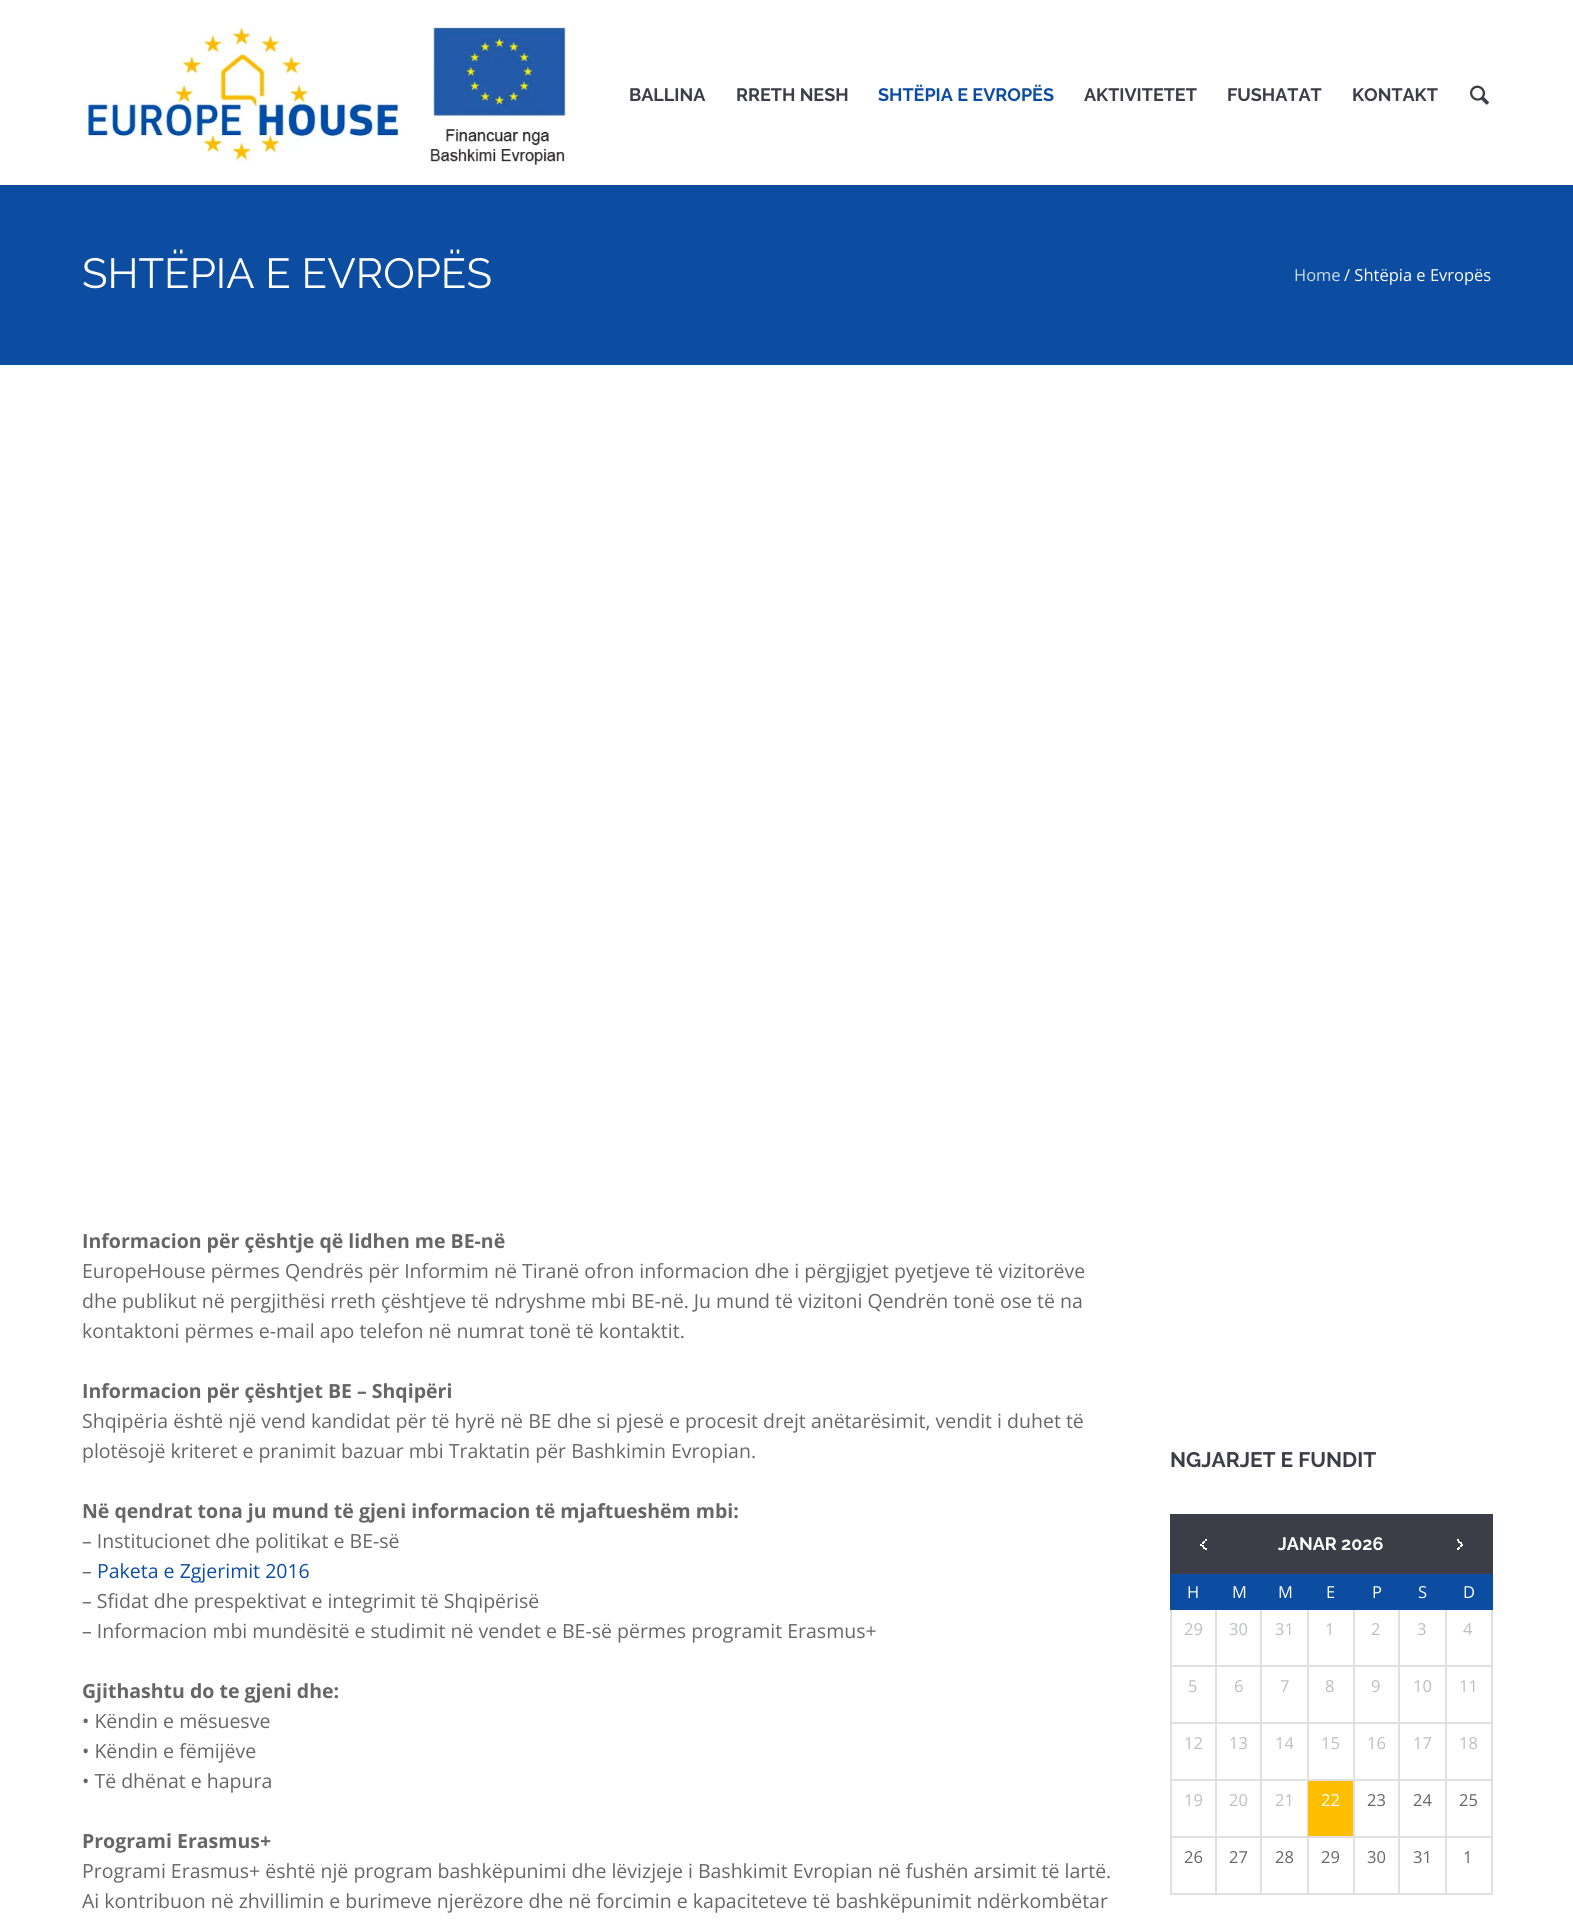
#include <cairo/cairo.h>
#include <math.h>
#include <stddef.h>

typedef struct { double x, y; const char *s; } line_t;
typedef struct { double x, y, w, h; unsigned color; } box_t;
static cairo_t *cr;

static void rgb(unsigned color)
{
	cairo_set_source_rgb(cr, (color >> 16) / 255.0, (color >> 8 & 255) / 255.0, (color & 255) / 255.0);
}

static void rrect(double x, double y, double w, double h, double r)
{
	cairo_new_sub_path(cr);
	cairo_arc(cr, x + w - r, y + h - r, r, 0, M_PI / 2);
	cairo_arc(cr, x + r, y + h - r, r, M_PI / 2, M_PI);
	cairo_arc(cr, x + r, y + r, r, M_PI, 1.5 * M_PI);
	cairo_arc(cr, x + w - r, y + r, r, 1.5 * M_PI, 2 * M_PI);
	cairo_close_path(cr);
}

static void soft_shadow(double x, double y, double w, double h, double r, double blur, double alpha)
{
	cairo_push_group_with_content(cr, CAIRO_CONTENT_ALPHA);
	cairo_set_operator(cr, CAIRO_OPERATOR_SOURCE);
	for (int i = 15; i >= -15 && fmin(w, h) + blur * i / 3 > 0; i -= 2) {
		double e = blur * i / 6;
		cairo_set_source_rgba(cr, 0, 0, 0, alpha * erfc((i - 1) / 8.5) / 2);
		rrect(x - e, y - e, w + 2 * e, h + 2 * e, fmax(0, fmin(r + e + blur * .6, fmin(w, h) / 2 + e)));
		cairo_fill(cr);
	}
	cairo_pattern_t *soft = cairo_pop_group(cr);
	cairo_mask(cr, soft);
	cairo_pattern_destroy(soft);
}

static void image(const char *path, double x, double y, double w, double h)
{
	cairo_surface_t *image = cairo_image_surface_create_from_png(path);
	cairo_save(cr);
	cairo_set_source_surface(cr, image, x, y);
	cairo_rectangle(cr, x, y, w, h);
	cairo_fill(cr);
	cairo_restore(cr);
	cairo_surface_destroy(image);
}

int main(void) {
	cairo_surface_t *surface = cairo_image_surface_create(CAIRO_FORMAT_RGB24, 1573, 1924);
	cr = cairo_create(surface);
	cairo_font_options_t *options = cairo_font_options_create();
	cairo_font_options_set_hint_metrics(options, CAIRO_HINT_METRICS_OFF);
	cairo_font_options_set_hint_style(options, CAIRO_HINT_STYLE_NONE);
	cairo_set_font_options(cr, options);
	cairo_set_miter_limit(cr, 4);
	rgb(0xffffff);
	cairo_paint(cr);
	rgb(0x0c4da2);
	cairo_rectangle(cr, 0, 185, 1573, 180);
	cairo_fill(cr);
	rgb(0x000000);
	soft_shadow(0, 2, 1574, 184, 0, 1, 0.05);
	rgb(0xffffff);
	cairo_rectangle(cr, 0, 1, 1573, 184);
	cairo_fill(cr);
	image("img/1.png", 87, 26, 481, 140);
	image("img/2.png", 1470, 85, 19, 20);
	{
		static const box_t items[] = {
			{1170, 1514, 323, 60, 0x3d3d47},
			{1200, 1544, 2, 2, 0xffffff},
			{1202, 1542, 2, 2, 0xffffff},
			{1203, 1541, 2, 2, 0xffffff},
			{1203, 1547, 2, 2, 0xffffff},
			{1202, 1545, 2, 2, 0xffffff},
			{1205, 1539, 2, 2, 0xffffff},
			{1205, 1548, 2, 2, 0xffffff},
			{1457, 1539, 2, 2, 0xffffff},
			{1457, 1548, 2, 2, 0xffffff},
			{1461, 1544, 2, 2, 0xffffff},
			{1458, 1541, 2, 2, 0xffffff},
			{1458, 1547, 2, 2, 0xffffff},
			{1460, 1542, 2, 2, 0xffffff},
			{1460, 1545, 2, 2, 0xffffff},
			{1170, 1574, 323, 36, 0x0c4da2},
			{1215, 1610, 2, 285, 0xe0e0e0},
			{1260, 1610, 2, 285, 0xe0e0e0},
			{1353, 1610, 2, 285, 0xe0e0e0},
			{1308, 1665, 47, 2, 0xe0e0e0},
			{1307, 1610, 2, 171, 0xe0e0e0},
			{1170, 1665, 138, 2, 0xe0e0e0},
			{1170, 1610, 2, 57, 0xe0e0e0},
			{1398, 1610, 2, 285, 0xe0e0e0},
			{1355, 1665, 45, 2, 0xe0e0e0},
			{1445, 1610, 2, 285, 0xe0e0e0},
			{1400, 1665, 46, 2, 0xe0e0e0},
			{1491, 1610, 2, 285, 0xe0e0e0},
			{1446, 1665, 47, 2, 0xe0e0e0},
			{1170, 1722, 47, 2, 0xe0e0e0},
			{1170, 1667, 2, 57, 0xe0e0e0},
			{1217, 1722, 45, 2, 0xe0e0e0},
			{1262, 1722, 231, 2, 0xe0e0e0},
			{1170, 1779, 323, 2, 0xe0e0e0},
			{1170, 1724, 2, 57, 0xe0e0e0},
			{1170, 1836, 92, 2, 0xe0e0e0},
			{1170, 1781, 2, 57, 0xe0e0e0},
			{1307, 1781, 1, 57, 0xe0e0e0},
			{1262, 1836, 231, 2, 0xe0e0e0},
			{1308, 1781, 45, 55, 0xffbe00},
			{1170, 1893, 92, 2, 0xe0e0e0},
			{1170, 1838, 2, 57, 0xe0e0e0},
			{1307, 1838, 2, 57, 0xe0e0e0},
			{1262, 1893, 231, 2, 0xe0e0e0},
		};
		for (size_t i = 0; i < sizeof items / sizeof *items; i++) {
			rgb(items[i].color);
			cairo_rectangle(cr, items[i].x, items[i].y, items[i].w, items[i].h);
			cairo_fill(cr);
		}
	}
	cairo_select_font_face(cr, "Raleway", CAIRO_FONT_SLANT_NORMAL, CAIRO_FONT_WEIGHT_BOLD);
	cairo_set_font_size(cr, 18);
	rgb(0x3d3d47);
	cairo_move_to(cr, 629, 101);
	cairo_show_text(cr, "BALLINA");
	cairo_move_to(cr, 736, 101);
	cairo_show_text(cr, "RRETH NESH");
	rgb(0x0c4da2);
	cairo_move_to(cr, 878, 101);
	cairo_show_text(cr, "SHTËPIA E EVROPËS");
	rgb(0x3d3d47);
	{
		static const line_t items[] = {
			{1084, 101, "AKTIVITETET"},
			{1227, 101, "FUSHATAT"},
			{1352, 101, "KONTAKT"},
		};
		for (size_t i = 0; i < sizeof items / sizeof *items; i++) {
			cairo_move_to(cr, items[i].x, items[i].y);
			cairo_show_text(cr, items[i].s);
		}
	}
	cairo_select_font_face(cr, "Raleway", CAIRO_FONT_SLANT_NORMAL, CAIRO_FONT_WEIGHT_NORMAL);
	cairo_set_font_size(cr, 42);
	rgb(0xffffff);
	cairo_move_to(cr, 82, 288);
	cairo_show_text(cr, "SHTËPIA E EVROPËS");
	cairo_select_font_face(cr, "Open Sans", CAIRO_FONT_SLANT_NORMAL, CAIRO_FONT_WEIGHT_NORMAL);
	cairo_set_font_size(cr, 16.5);
	rgb(0xcedbec);
	cairo_move_to(cr, 1294, 281);
	cairo_show_text(cr, "Home");
	rgb(0xffffff);
	cairo_move_to(cr, 1344, 281);
	cairo_show_text(cr, "/ Shtëpia e Evropës");
	cairo_select_font_face(cr, "Open Sans", CAIRO_FONT_SLANT_NORMAL, CAIRO_FONT_WEIGHT_BOLD);
	cairo_set_font_size(cr, 19.5);
	rgb(0x666666);
	cairo_move_to(cr, 82, 1248);
	cairo_show_text(cr, "Informacion për çështje që lidhen me BE-në");
	cairo_select_font_face(cr, "Open Sans", CAIRO_FONT_SLANT_NORMAL, CAIRO_FONT_WEIGHT_NORMAL);
	{
		static const line_t items[] = {
			{82, 1278, "EuropeHouse përmes Qendrës për Informim në Tiranë ofron informacion dhe i përgjigjet pyetjeve të vizitorëve"},
			{82, 1308, "dhe publikut në pergjithësi rreth çështjeve të ndryshme mbi BE-në. Ju mund të vizitoni Qendrën tonë ose të na"},
			{82, 1338, "kontaktoni përmes e-mail apo telefon në numrat tonë të kontaktit."},
		};
		for (size_t i = 0; i < sizeof items / sizeof *items; i++) {
			cairo_move_to(cr, items[i].x, items[i].y);
			cairo_show_text(cr, items[i].s);
		}
	}
	cairo_select_font_face(cr, "Open Sans", CAIRO_FONT_SLANT_NORMAL, CAIRO_FONT_WEIGHT_BOLD);
	cairo_move_to(cr, 82, 1398);
	cairo_show_text(cr, "Informacion për çështjet BE – Shqipëri");
	cairo_select_font_face(cr, "Open Sans", CAIRO_FONT_SLANT_NORMAL, CAIRO_FONT_WEIGHT_NORMAL);
	cairo_move_to(cr, 82, 1428);
	cairo_show_text(cr, "Shqipëria është një vend kandidat për të hyrë në BE dhe si pjesë e procesit drejt anëtarësimit, vendit i duhet të");
	cairo_move_to(cr, 82, 1458);
	cairo_show_text(cr, "plotësojë kriteret e pranimit bazuar mbi Traktatin për Bashkimin Evropian.");
	cairo_select_font_face(cr, "Open Sans", CAIRO_FONT_SLANT_NORMAL, CAIRO_FONT_WEIGHT_BOLD);
	cairo_move_to(cr, 82, 1518);
	cairo_show_text(cr, "Në qendrat tona ju mund të gjeni informacion të mjaftueshëm mbi:");
	cairo_select_font_face(cr, "Open Sans", CAIRO_FONT_SLANT_NORMAL, CAIRO_FONT_WEIGHT_NORMAL);
	cairo_move_to(cr, 82, 1548);
	cairo_show_text(cr, "– Institucionet dhe politikat e BE-së");
	cairo_move_to(cr, 82, 1578);
	cairo_show_text(cr, "–");
	rgb(0x0c4da2);
	cairo_move_to(cr, 97, 1578);
	cairo_show_text(cr, "Paketa e Zgjerimit 2016");
	rgb(0x666666);
	cairo_move_to(cr, 82, 1608);
	cairo_show_text(cr, "– Sfidat dhe prespektivat e integrimit të Shqipërisë");
	cairo_move_to(cr, 82, 1638);
	cairo_show_text(cr, "– Informacion mbi mundësitë e studimit në vendet e BE-së përmes programit Erasmus+");
	cairo_select_font_face(cr, "Open Sans", CAIRO_FONT_SLANT_NORMAL, CAIRO_FONT_WEIGHT_BOLD);
	cairo_move_to(cr, 82, 1698);
	cairo_show_text(cr, "Gjithashtu do te gjeni dhe:");
	cairo_select_font_face(cr, "Open Sans", CAIRO_FONT_SLANT_NORMAL, CAIRO_FONT_WEIGHT_NORMAL);
	{
		static const line_t items[] = {
			{82, 1728, "• Këndin e mësuesve"},
			{82, 1758, "• Këndin e fëmijëve"},
			{82, 1788, "• Të dhënat e hapura"},
		};
		for (size_t i = 0; i < sizeof items / sizeof *items; i++) {
			cairo_move_to(cr, items[i].x, items[i].y);
			cairo_show_text(cr, items[i].s);
		}
	}
	cairo_select_font_face(cr, "Open Sans", CAIRO_FONT_SLANT_NORMAL, CAIRO_FONT_WEIGHT_BOLD);
	cairo_move_to(cr, 82, 1848);
	cairo_show_text(cr, "Programi Erasmus+");
	cairo_select_font_face(cr, "Open Sans", CAIRO_FONT_SLANT_NORMAL, CAIRO_FONT_WEIGHT_NORMAL);
	cairo_move_to(cr, 82, 1878);
	cairo_show_text(cr, "Programi Erasmus+ është një program bashkëpunimi dhe lëvizjeje i Bashkimit Evropian në fushën arsimit të lartë.");
	cairo_move_to(cr, 82, 1908);
	cairo_show_text(cr, "Ai kontribuon në zhvillimin e burimeve njerëzore dhe në forcimin e kapaciteteve të bashkëpunimit ndërkombëtar");
	cairo_select_font_face(cr, "Raleway", CAIRO_FONT_SLANT_NORMAL, CAIRO_FONT_WEIGHT_BOLD);
	cairo_set_font_size(cr, 21);
	rgb(0x3d3d47);
	cairo_move_to(cr, 1170, 1467);
	cairo_show_text(cr, "NGJARJET E FUNDIT");
	cairo_set_font_size(cr, 18);
	rgb(0xffffff);
	cairo_move_to(cr, 1278, 1550);
	cairo_show_text(cr, "JANAR 2026");
	cairo_select_font_face(cr, "Open Sans", CAIRO_FONT_SLANT_NORMAL, CAIRO_FONT_WEIGHT_NORMAL);
	cairo_set_font_size(cr, 16.5);
	{
		static const line_t items[] = {
			{1187, 1598, "H"},
			{1232, 1598, "M"},
			{1278, 1598, "M"},
			{1326, 1598, "E"},
			{1372, 1598, "P"},
			{1418, 1598, "S"},
			{1463, 1598, "D"},
		};
		for (size_t i = 0; i < sizeof items / sizeof *items; i++) {
			cairo_move_to(cr, items[i].x, items[i].y);
			cairo_show_text(cr, items[i].s);
		}
	}
	rgb(0xbcbec1);
	{
		static const line_t items[] = {
			{1184, 1635, "29"},
			{1229, 1635, "30"},
			{1275, 1635, "31"},
			{1325, 1635, "1"},
			{1371, 1635, "2"},
			{1417, 1635, "3"},
			{1463, 1635, "4"},
			{1188, 1692, "5"},
			{1234, 1692, "6"},
			{1280, 1692, "7"},
			{1325, 1692, "8"},
			{1371, 1692, "9"},
			{1413, 1692, "10"},
			{1459, 1692, "11"},
			{1184, 1749, "12"},
			{1229, 1749, "13"},
			{1275, 1749, "14"},
			{1321, 1749, "15"},
			{1367, 1749, "16"},
			{1413, 1749, "17"},
			{1459, 1749, "18"},
			{1184, 1806, "19"},
			{1229, 1806, "20"},
			{1275, 1806, "21"},
		};
		for (size_t i = 0; i < sizeof items / sizeof *items; i++) {
			cairo_move_to(cr, items[i].x, items[i].y);
			cairo_show_text(cr, items[i].s);
		}
	}
	rgb(0xffffff);
	cairo_move_to(cr, 1321, 1806);
	cairo_show_text(cr, "22");
	rgb(0x666666);
	{
		static const line_t items[] = {
			{1367, 1806, "23"},
			{1413, 1806, "24"},
			{1459, 1806, "25"},
			{1184, 1863, "26"},
			{1229, 1863, "27"},
			{1275, 1863, "28"},
			{1321, 1863, "29"},
			{1367, 1863, "30"},
			{1413, 1863, "31"},
			{1463, 1863, "1"},
		};
		for (size_t i = 0; i < sizeof items / sizeof *items; i++) {
			cairo_move_to(cr, items[i].x, items[i].y);
			cairo_show_text(cr, items[i].s);
		}
	}
	cairo_surface_write_to_png(surface, "page.png");
	cairo_font_options_destroy(options);
	cairo_destroy(cr);
	cairo_surface_destroy(surface);
	return 0;
}
